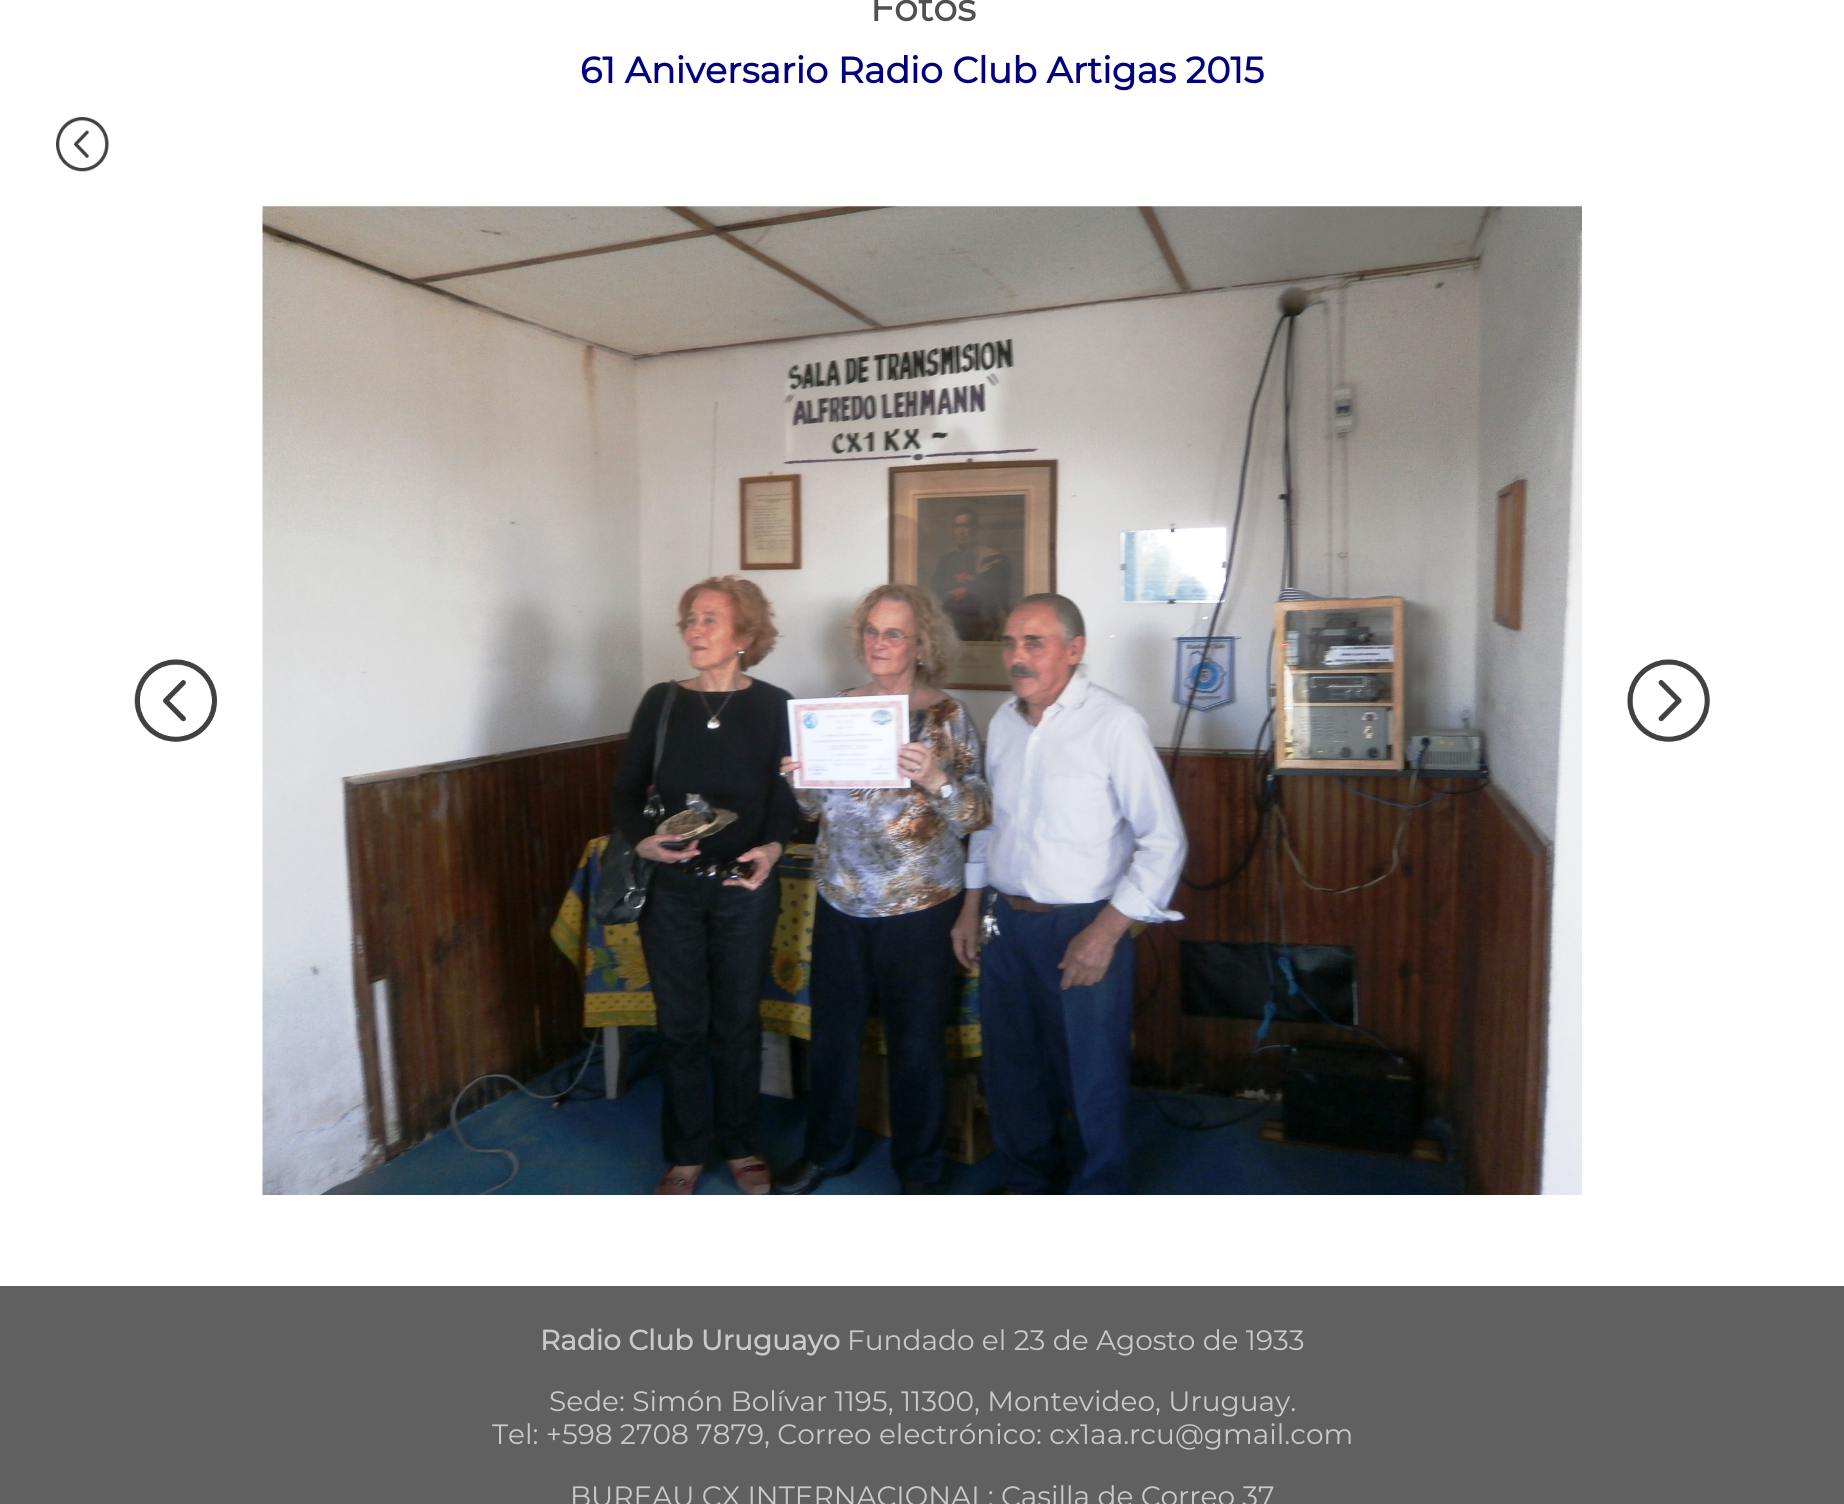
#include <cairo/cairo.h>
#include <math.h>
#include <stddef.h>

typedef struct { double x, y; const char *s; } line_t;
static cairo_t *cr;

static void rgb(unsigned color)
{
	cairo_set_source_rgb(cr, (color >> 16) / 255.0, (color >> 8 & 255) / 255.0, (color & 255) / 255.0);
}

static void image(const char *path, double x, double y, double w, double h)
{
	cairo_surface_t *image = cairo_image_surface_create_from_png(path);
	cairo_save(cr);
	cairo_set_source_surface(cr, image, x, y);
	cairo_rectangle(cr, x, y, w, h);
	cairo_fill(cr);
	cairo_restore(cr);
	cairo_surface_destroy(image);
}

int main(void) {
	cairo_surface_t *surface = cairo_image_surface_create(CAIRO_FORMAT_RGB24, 1844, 1504);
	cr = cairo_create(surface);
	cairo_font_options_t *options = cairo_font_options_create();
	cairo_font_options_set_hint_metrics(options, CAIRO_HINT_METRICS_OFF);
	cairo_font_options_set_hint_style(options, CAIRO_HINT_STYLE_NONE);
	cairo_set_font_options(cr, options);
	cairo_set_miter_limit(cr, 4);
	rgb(0xffffff);
	cairo_paint(cr);
	image("img/1.png", 56, 117, 53, 55);
	image("img/2.png", 134, 659, 83, 83);
	image("img/3.png", 262, 206, 1320, 989);
	image("img/4.png", 1627, 659, 83, 83);
	rgb(0x606060);
	cairo_rectangle(cr, 0, 1286, 1844, 218);
	cairo_fill(cr);
	cairo_select_font_face(cr, "Montserrat", CAIRO_FONT_SLANT_NORMAL, CAIRO_FONT_WEIGHT_BOLD);
	cairo_set_font_size(cr, 38);
	rgb(0x505050);
	cairo_move_to(cr, 870, 21);
	cairo_show_text(cr, "Fotos");
	cairo_set_font_size(cr, 36.4);
	rgb(0x000080);
	cairo_move_to(cr, 580, 83);
	cairo_show_text(cr, "61 Aniversario Radio Club Artigas 2015");
	cairo_set_font_size(cr, 28);
	rgb(0xc9c9c9);
	cairo_move_to(cr, 540, 1350);
	cairo_show_text(cr, "Radio Club Uruguayo");
	cairo_select_font_face(cr, "Montserrat Thin", CAIRO_FONT_SLANT_NORMAL, CAIRO_FONT_WEIGHT_NORMAL);
	{
		static const line_t items[] = {
			{847, 1350, "Fundado el 23 de Agosto de 1933"},
			{549, 1411, "Sede: Simón Bolívar 1195, 11300, Montevideo, Uruguay."},
			{492, 1444, "Tel: +598 2708 7879, Correo electrónico: cx1aa.rcu@gmail.com"},
			{570, 1506, "BUREAU CX INTERNACIONAL: Casilla de Correo 37"},
		};
		for (size_t i = 0; i < sizeof items / sizeof *items; i++) {
			cairo_move_to(cr, items[i].x, items[i].y);
			cairo_show_text(cr, items[i].s);
		}
	}
	cairo_surface_write_to_png(surface, "page.png");
	cairo_font_options_destroy(options);
	cairo_destroy(cr);
	cairo_surface_destroy(surface);
	return 0;
}
